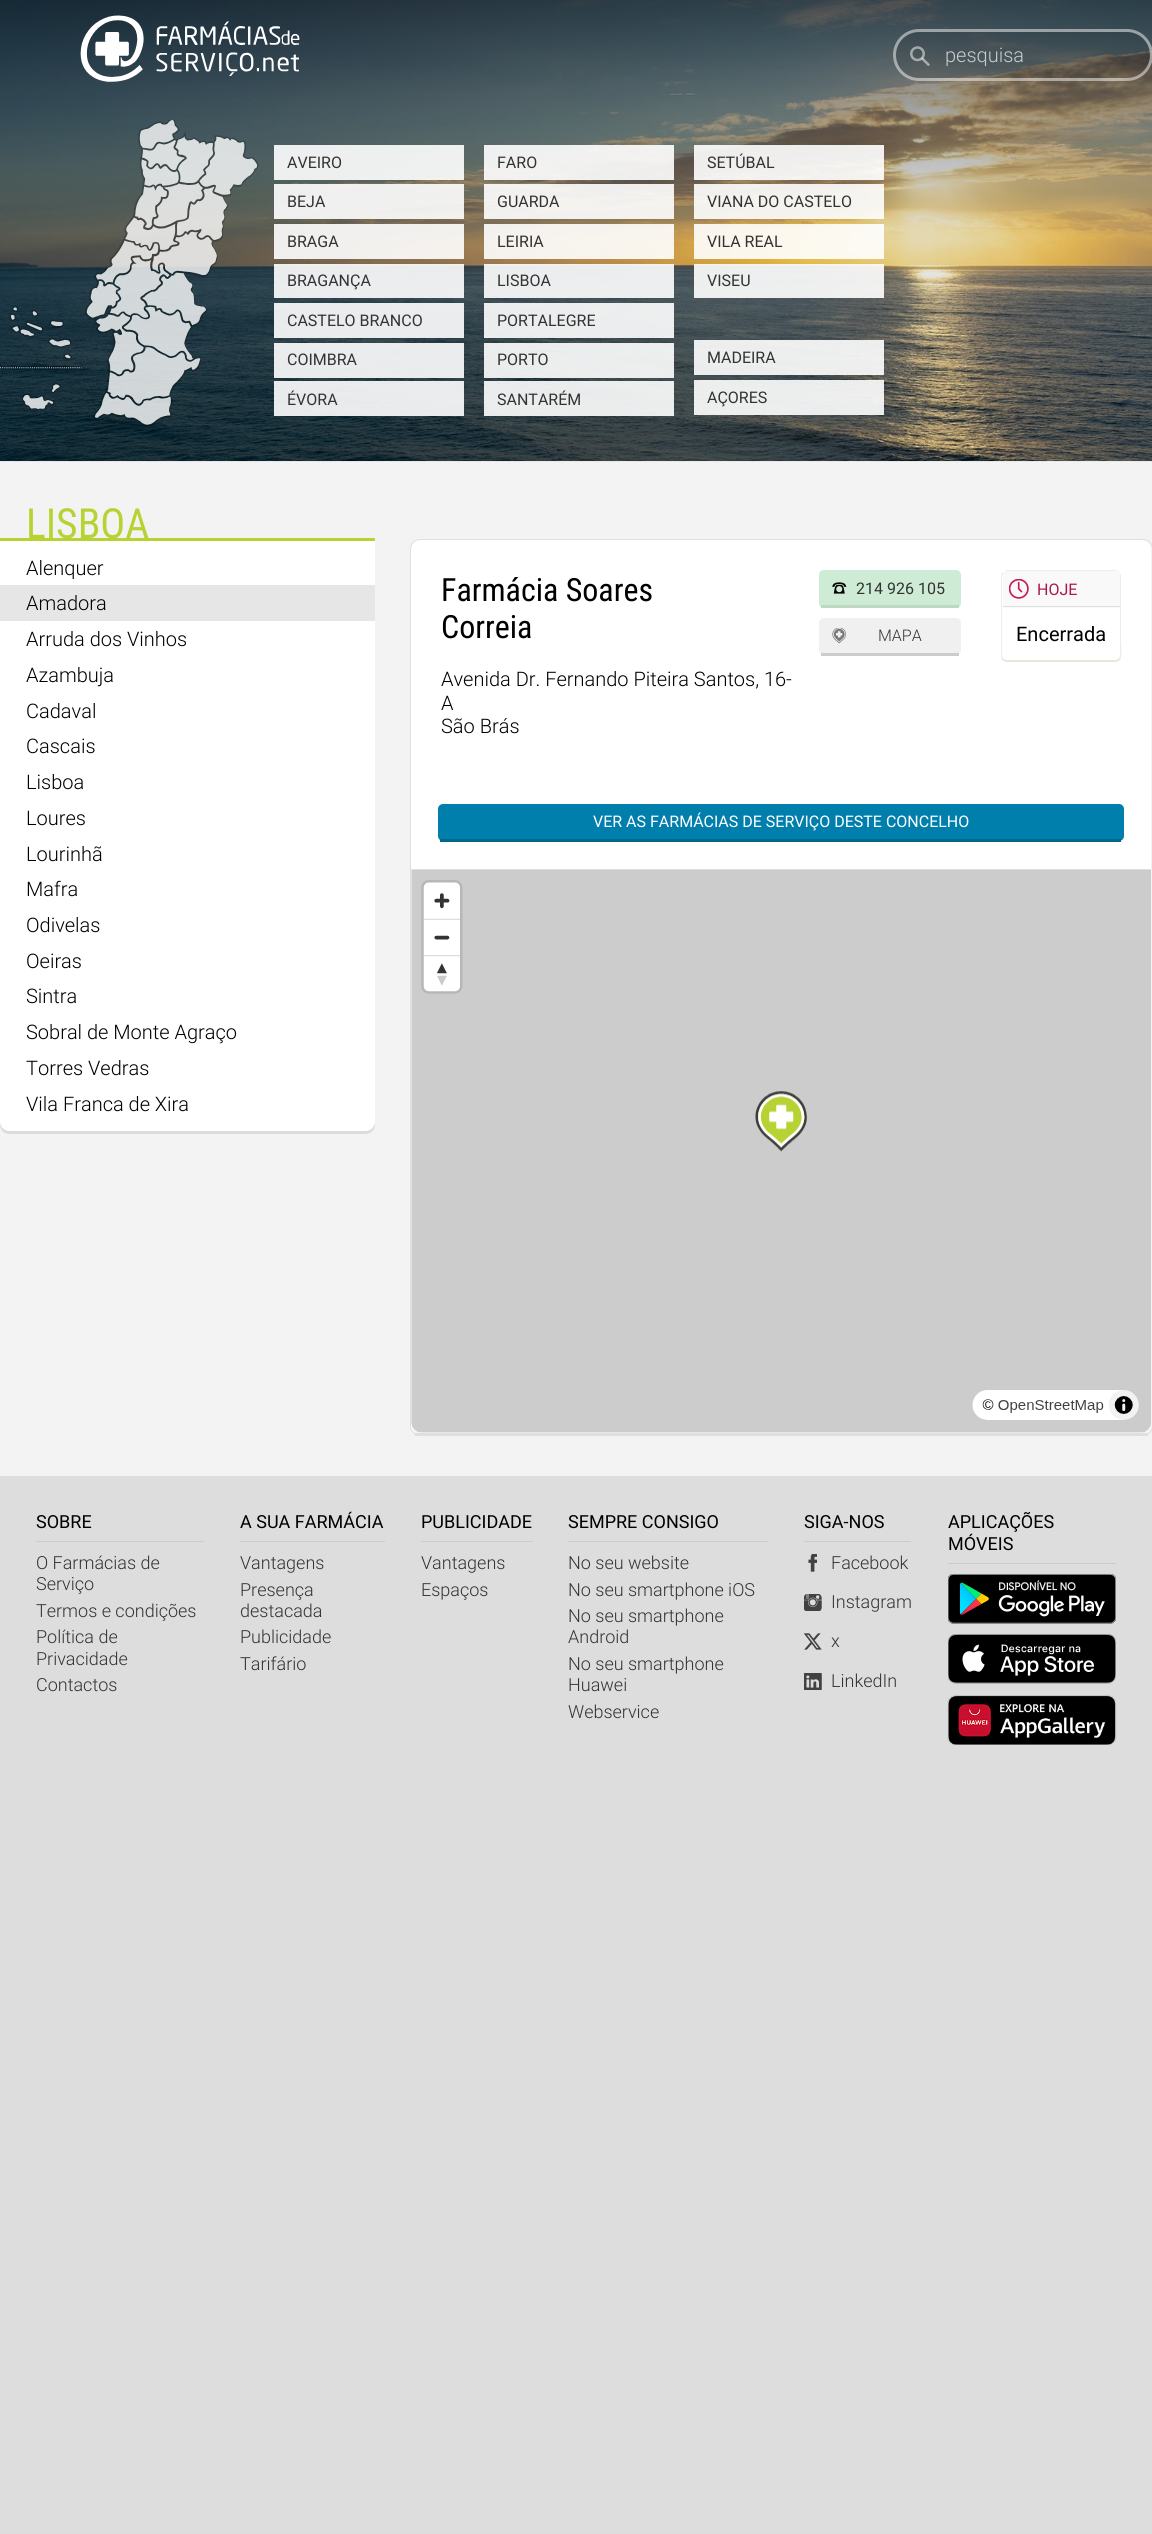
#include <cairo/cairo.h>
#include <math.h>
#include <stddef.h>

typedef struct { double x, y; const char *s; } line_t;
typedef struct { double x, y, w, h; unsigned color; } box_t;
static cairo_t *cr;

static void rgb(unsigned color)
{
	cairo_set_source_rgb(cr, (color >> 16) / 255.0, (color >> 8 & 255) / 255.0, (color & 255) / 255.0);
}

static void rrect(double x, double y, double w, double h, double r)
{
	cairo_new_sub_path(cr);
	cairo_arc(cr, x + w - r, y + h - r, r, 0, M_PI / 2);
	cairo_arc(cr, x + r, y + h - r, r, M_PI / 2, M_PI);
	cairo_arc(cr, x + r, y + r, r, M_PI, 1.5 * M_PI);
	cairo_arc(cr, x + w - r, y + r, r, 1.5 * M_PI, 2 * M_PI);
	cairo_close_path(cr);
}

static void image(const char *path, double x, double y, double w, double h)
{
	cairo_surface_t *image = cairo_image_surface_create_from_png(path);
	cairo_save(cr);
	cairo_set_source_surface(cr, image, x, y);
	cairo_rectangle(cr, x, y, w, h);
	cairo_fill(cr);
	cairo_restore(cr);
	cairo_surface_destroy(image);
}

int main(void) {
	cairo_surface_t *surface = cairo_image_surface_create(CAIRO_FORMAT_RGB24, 1152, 2534);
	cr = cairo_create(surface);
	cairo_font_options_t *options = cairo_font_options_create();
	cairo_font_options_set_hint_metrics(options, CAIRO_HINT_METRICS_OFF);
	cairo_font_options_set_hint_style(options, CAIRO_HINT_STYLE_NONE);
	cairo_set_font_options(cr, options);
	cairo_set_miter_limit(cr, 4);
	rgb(0xf3f3f3);
	cairo_paint(cr);
	image("img/3.png", 0, 0, 1152, 462);
	image("img/1.png", 80, 15, 220, 67);
	cairo_set_source_rgba(cr, 0, 0, 0, 0.1);
	rrect(893, 29, 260, 52, 26);
	cairo_fill(cr);
	rrect(894.5, 30.5, 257, 49, 24.5);
	cairo_set_source_rgba(cr, 1, 1, 1, 0.5);
	cairo_set_line_width(cr, 3);
	cairo_stroke(cr);
	image("img/2.png", 910, 46, 20, 20);
	image("img/4.png", 0, 120, 259, 306);
	cairo_set_source_rgba(cr, 1, 1, 1, 0.9);
	cairo_rectangle(cr, 274, 145, 190, 35);
	cairo_fill(cr);
	cairo_rectangle(cr, 274, 184, 190, 35);
	cairo_fill(cr);
	cairo_rectangle(cr, 274, 224, 190, 35);
	cairo_fill(cr);
	cairo_rectangle(cr, 274, 264, 190, 34);
	cairo_fill(cr);
	cairo_rectangle(cr, 274, 303, 190, 35);
	cairo_fill(cr);
	cairo_rectangle(cr, 274, 343, 190, 35);
	cairo_fill(cr);
	cairo_rectangle(cr, 274, 381, 190, 35);
	cairo_fill(cr);
	cairo_rectangle(cr, 484, 145, 190, 35);
	cairo_fill(cr);
	cairo_rectangle(cr, 484, 184, 190, 35);
	cairo_fill(cr);
	cairo_rectangle(cr, 484, 224, 190, 35);
	cairo_fill(cr);
	cairo_rectangle(cr, 484, 264, 190, 34);
	cairo_fill(cr);
	cairo_rectangle(cr, 484, 303, 190, 35);
	cairo_fill(cr);
	cairo_rectangle(cr, 484, 343, 190, 35);
	cairo_fill(cr);
	cairo_rectangle(cr, 484, 381, 190, 35);
	cairo_fill(cr);
	cairo_rectangle(cr, 694, 145, 190, 35);
	cairo_fill(cr);
	cairo_rectangle(cr, 694, 184, 190, 35);
	cairo_fill(cr);
	cairo_rectangle(cr, 694, 224, 190, 35);
	cairo_fill(cr);
	cairo_rectangle(cr, 694, 264, 190, 34);
	cairo_fill(cr);
	cairo_rectangle(cr, 694, 340, 190, 35);
	cairo_fill(cr);
	cairo_rectangle(cr, 694, 380, 190, 35);
	cairo_fill(cr);
	rgb(0xdbdbdb);
	cairo_new_path(cr);
	cairo_move_to(cr, 0, 1121);
	cairo_line_to(cr, 0, 1124);
	cairo_curve_to(cr, 0, 1130, 4, 1134, 10, 1134);
	cairo_line_to(cr, 365, 1134);
	cairo_curve_to(cr, 371, 1134, 375, 1130, 375, 1124);
	cairo_line_to(cr, 375, 1121);
	cairo_curve_to(cr, 375, 1127, 371, 1131, 365, 1131);
	cairo_line_to(cr, 10, 1131);
	cairo_curve_to(cr, 4, 1131, 0, 1127, 0, 1121);
	cairo_close_path(cr);
	cairo_fill(cr);
	rgb(0xffffff);
	cairo_new_path(cr);
	cairo_move_to(cr, 0, 540);
	cairo_line_to(cr, 375, 540);
	cairo_line_to(cr, 375, 1121);
	cairo_curve_to(cr, 375, 1126.5, 370.5, 1131, 365, 1131);
	cairo_line_to(cr, 10, 1131);
	cairo_curve_to(cr, 4.5, 1131, 0, 1126.5, 0, 1121);
	cairo_close_path(cr);
	cairo_fill(cr);
	rgb(0xb7d333);
	cairo_rectangle(cr, 0, 538, 375, 3);
	cairo_fill(cr);
	rgb(0xe6e6e6);
	cairo_rectangle(cr, 0, 585, 375, 36);
	cairo_fill(cr);
	rgb(0xffffff);
	cairo_new_path(cr);
	cairo_move_to(cr, 420, 540);
	cairo_line_to(cr, 1142, 540);
	cairo_curve_to(cr, 1147, 540, 1151, 544, 1151, 549);
	cairo_line_to(cr, 1151, 1426);
	cairo_curve_to(cr, 1151, 1430, 1147, 1432, 1142, 1432);
	cairo_line_to(cr, 420, 1432);
	cairo_curve_to(cr, 415, 1432, 411, 1430, 411, 1426);
	cairo_line_to(cr, 411, 549);
	cairo_curve_to(cr, 411, 544, 415, 540, 420, 540);
	cairo_close_path(cr);
	cairo_fill(cr);
	rrect(410.5, 539.5, 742, 896, 9.5);
	rgb(0xdfdfdf);
	cairo_set_line_width(cr, 1);
	cairo_stroke(cr);
	cairo_rectangle(cr, 415, 1433, 733, 3);
	cairo_fill(cr);
	rgb(0xceecd5);
	rrect(819, 570, 142, 38, 5);
	cairo_fill(cr);
	rgb(0xbdd9c3);
	cairo_rectangle(cr, 821, 605, 138, 3);
	cairo_fill(cr);
	image("img/5.png", 832, 582, 15, 12);
	rgb(0xf0f0f0);
	rrect(819, 618, 142, 37, 5);
	cairo_fill(cr);
	rgb(0xcccccc);
	cairo_rectangle(cr, 821, 653, 138, 3);
	cairo_fill(cr);
	image("img/6.png", 832, 628, 14, 16);
	rgb(0xededed);
	cairo_new_path(cr);
	cairo_move_to(cr, 1007, 570);
	cairo_curve_to(cr, 1006, 570, 1004, 571, 1003, 572);
	cairo_line_to(cr, 1004, 572);
	cairo_curve_to(cr, 1005, 572, 1006, 571, 1007, 571);
	cairo_line_to(cr, 1115, 571);
	cairo_curve_to(cr, 1117, 571, 1118, 572, 1119, 573);
	cairo_line_to(cr, 1119, 572);
	cairo_curve_to(cr, 1118, 571, 1117, 570, 1115, 570);
	cairo_close_path(cr);
	cairo_fill(cr);
	cairo_new_path(cr);
	cairo_move_to(cr, 1119, 572);
	cairo_line_to(cr, 1121, 575);
	cairo_line_to(cr, 1121, 643);
	cairo_curve_to(cr, 1121, 644, 1123, 656, 1120, 660);
	cairo_line_to(cr, 1119, 658);
	cairo_line_to(cr, 1120, 656);
	cairo_line_to(cr, 1120, 575);
	cairo_line_to(cr, 1119, 573);
	cairo_close_path(cr);
	cairo_fill(cr);
	rgb(0xe8e7da);
	cairo_new_path(cr);
	cairo_move_to(cr, 1120, 660);
	cairo_curve_to(cr, 1119, 661, 1117, 662, 1115, 662);
	cairo_line_to(cr, 1007, 662);
	cairo_curve_to(cr, 1005, 662, 1004, 661, 1002, 660);
	cairo_line_to(cr, 1003, 658);
	cairo_curve_to(cr, 1004, 659, 1006, 660, 1007, 660);
	cairo_line_to(cr, 1115, 660);
	cairo_curve_to(cr, 1117, 660, 1118, 659, 1119, 658);
	cairo_close_path(cr);
	cairo_fill(cr);
	rgb(0xededed);
	cairo_new_path(cr);
	cairo_move_to(cr, 1001, 574);
	cairo_line_to(cr, 1003, 572);
	cairo_line_to(cr, 1004, 572);
	cairo_line_to(cr, 1002, 575);
	cairo_line_to(cr, 1002, 656);
	cairo_line_to(cr, 1003, 658);
	cairo_line_to(cr, 1002, 660);
	cairo_line_to(cr, 1001, 658);
	cairo_close_path(cr);
	cairo_fill(cr);
	rgb(0xf9f9f9);
	cairo_rectangle(cr, 1003, 571, 117, 37);
	cairo_fill(cr);
	rgb(0xdfdfdf);
	cairo_rectangle(cr, 1003, 606, 117, 1);
	cairo_fill(cr);
	image("img/7.png", 1009, 579, 20, 20);
	rgb(0x007fad);
	rrect(438, 804, 686, 37, 5);
	cairo_fill(cr);
	rgb(0x00678c);
	cairo_rectangle(cr, 440, 839, 681, 3);
	cairo_fill(cr);
	rgb(0xdfdfdf);
	cairo_rectangle(cr, 411, 869, 740, 1);
	cairo_fill(cr);
	image("img/8.png", 411, 870, 740, 563);
	{
		static const box_t items[] = {
			{0, 1476, 1152, 1058, 0xdddddd},
			{36, 1541, 168, 1, 0xcccccc},
			{240, 1541, 145, 1, 0xcccccc},
			{421, 1541, 112, 1, 0xcccccc},
			{568, 1541, 200, 1, 0xcccccc},
			{804, 1541, 107, 1, 0xcccccc},
		};
		for (size_t i = 0; i < sizeof items / sizeof *items; i++) {
			rgb(items[i].color);
			cairo_rectangle(cr, items[i].x, items[i].y, items[i].w, items[i].h);
			cairo_fill(cr);
		}
	}
	image("img/9.png", 808, 1554, 9, 18);
	image("img/10.png", 804, 1594, 18, 17);
	image("img/11.png", 804, 1633, 18, 17);
	image("img/12.png", 804, 1673, 18, 17);
	cairo_rectangle(cr, 948, 1563, 168, 1);
	cairo_fill(cr);
	image("img/13.png", 948, 1574, 168, 50);
	image("img/14.png", 948, 1634, 168, 50);
	image("img/15.png", 947, 1695, 170, 50);
	cairo_select_font_face(cr, "Roboto Light", CAIRO_FONT_SLANT_NORMAL, CAIRO_FONT_WEIGHT_NORMAL);
	cairo_set_font_size(cr, 20);
	rgb(0xc8cccd);
	cairo_move_to(cr, 945, 62);
	cairo_show_text(cr, "pesquisa");
	cairo_select_font_face(cr, "Roboto", CAIRO_FONT_SLANT_NORMAL, CAIRO_FONT_WEIGHT_NORMAL);
	cairo_set_font_size(cr, 16);
	rgb(0x333333);
	{
		static const line_t items[] = {
			{287, 168, "AVEIRO"},
			{287, 207, "BEJA"},
			{287, 247, "BRAGA"},
			{287, 286, "BRAGANÇA"},
			{287, 326, "CASTELO BRANCO"},
			{287, 365, "COIMBRA"},
			{287, 405, "ÉVORA"},
			{497, 168, "FARO"},
			{497, 207, "GUARDA"},
			{497, 247, "LEIRIA"},
			{497, 286, "LISBOA"},
			{497, 326, "PORTALEGRE"},
			{497, 365, "PORTO"},
			{497, 405, "SANTARÉM"},
			{707, 168, "SETÚBAL"},
			{707, 207, "VIANA DO CASTELO"},
			{707, 247, "VILA REAL"},
			{707, 286, "VISEU"},
			{707, 363, "MADEIRA"},
			{707, 403, "AÇORES"},
		};
		for (size_t i = 0; i < sizeof items / sizeof *items; i++) {
			cairo_move_to(cr, items[i].x, items[i].y);
			cairo_show_text(cr, items[i].s);
		}
	}
	cairo_select_font_face(cr, "Roboto Condensed", CAIRO_FONT_SLANT_NORMAL, CAIRO_FONT_WEIGHT_NORMAL);
	cairo_set_font_size(cr, 41.5);
	rgb(0xb7d333);
	cairo_move_to(cr, 26, 538);
	cairo_show_text(cr, "LISBOA");
	cairo_select_font_face(cr, "Roboto Light", CAIRO_FONT_SLANT_NORMAL, CAIRO_FONT_WEIGHT_NORMAL);
	cairo_set_font_size(cr, 20);
	rgb(0x000000);
	{
		static const line_t items[] = {
			{26, 575, "Alenquer"},
			{26, 610, "Amadora"},
			{26, 646, "Arruda dos Vinhos"},
			{26, 682, "Azambuja"},
			{26, 718, "Cadaval"},
			{26, 753, "Cascais"},
			{26, 789, "Lisboa"},
			{26, 825, "Loures"},
			{26, 861, "Lourinhã"},
			{26, 896, "Mafra"},
			{26, 932, "Odivelas"},
			{26, 968, "Oeiras"},
			{26, 1003, "Sintra"},
			{26, 1039, "Sobral de Monte Agraço"},
			{26, 1075, "Torres Vedras"},
			{26, 1111, "Vila Franca de Xira"},
		};
		for (size_t i = 0; i < sizeof items / sizeof *items; i++) {
			cairo_move_to(cr, items[i].x, items[i].y);
			cairo_show_text(cr, items[i].s);
		}
	}
	cairo_select_font_face(cr, "Roboto Condensed", CAIRO_FONT_SLANT_NORMAL, CAIRO_FONT_WEIGHT_NORMAL);
	cairo_set_font_size(cr, 32);
	cairo_move_to(cr, 441, 601);
	cairo_show_text(cr, "Farmácia Soares");
	cairo_move_to(cr, 441, 638);
	cairo_show_text(cr, "Correia");
	cairo_select_font_face(cr, "Roboto Light", CAIRO_FONT_SLANT_NORMAL, CAIRO_FONT_WEIGHT_NORMAL);
	cairo_set_font_size(cr, 20);
	{
		static const line_t items[] = {
			{441, 686, "Avenida Dr. Fernando Piteira Santos, 16-"},
			{441, 710, "A"},
			{441, 733, "São Brás"},
		};
		for (size_t i = 0; i < sizeof items / sizeof *items; i++) {
			cairo_move_to(cr, items[i].x, items[i].y);
			cairo_show_text(cr, items[i].s);
		}
	}
	cairo_select_font_face(cr, "Roboto", CAIRO_FONT_SLANT_NORMAL, CAIRO_FONT_WEIGHT_NORMAL);
	cairo_set_font_size(cr, 16);
	rgb(0x333333);
	cairo_move_to(cr, 856, 594);
	cairo_show_text(cr, "214 926 105");
	cairo_select_font_face(cr, "Roboto Light", CAIRO_FONT_SLANT_NORMAL, CAIRO_FONT_WEIGHT_NORMAL);
	cairo_move_to(cr, 878, 641);
	cairo_show_text(cr, "MAPA");
	cairo_select_font_face(cr, "Roboto", CAIRO_FONT_SLANT_NORMAL, CAIRO_FONT_WEIGHT_NORMAL);
	rgb(0xab184b);
	cairo_move_to(cr, 1037, 595);
	cairo_show_text(cr, "HOJE");
	cairo_set_font_size(cr, 20);
	rgb(0x000000);
	cairo_move_to(cr, 1016, 641);
	cairo_show_text(cr, "Encerrada");
	cairo_set_font_size(cr, 16);
	rgb(0xffffff);
	cairo_move_to(cr, 593, 827);
	cairo_show_text(cr, "VER AS FARMÁCIAS DE SERVIÇO DESTE CONCELHO");
	cairo_set_font_size(cr, 18);
	rgb(0x000000);
	cairo_move_to(cr, 36, 1528);
	cairo_show_text(cr, "SOBRE");
	cairo_select_font_face(cr, "Roboto Light", CAIRO_FONT_SLANT_NORMAL, CAIRO_FONT_WEIGHT_NORMAL);
	rgb(0x333333);
	{
		static const line_t items[] = {
			{36, 1569, "O Farmácias de"},
			{36, 1590, "Serviço"},
			{36, 1617, "Termos e condições"},
			{36, 1643, "Política de"},
			{36, 1665, "Privacidade"},
			{36, 1691, "Contactos"},
		};
		for (size_t i = 0; i < sizeof items / sizeof *items; i++) {
			cairo_move_to(cr, items[i].x, items[i].y);
			cairo_show_text(cr, items[i].s);
		}
	}
	cairo_select_font_face(cr, "Roboto", CAIRO_FONT_SLANT_NORMAL, CAIRO_FONT_WEIGHT_NORMAL);
	rgb(0x000000);
	cairo_move_to(cr, 240, 1528);
	cairo_show_text(cr, "A SUA FARMÁCIA");
	cairo_select_font_face(cr, "Roboto Light", CAIRO_FONT_SLANT_NORMAL, CAIRO_FONT_WEIGHT_NORMAL);
	rgb(0x333333);
	{
		static const line_t items[] = {
			{240, 1569, "Vantagens"},
			{240, 1596, "Presença"},
			{240, 1617, "destacada"},
			{240, 1643, "Publicidade"},
			{240, 1670, "Tarifário"},
		};
		for (size_t i = 0; i < sizeof items / sizeof *items; i++) {
			cairo_move_to(cr, items[i].x, items[i].y);
			cairo_show_text(cr, items[i].s);
		}
	}
	cairo_select_font_face(cr, "Roboto", CAIRO_FONT_SLANT_NORMAL, CAIRO_FONT_WEIGHT_NORMAL);
	rgb(0x000000);
	cairo_move_to(cr, 421, 1528);
	cairo_show_text(cr, "PUBLICIDADE");
	cairo_select_font_face(cr, "Roboto Light", CAIRO_FONT_SLANT_NORMAL, CAIRO_FONT_WEIGHT_NORMAL);
	rgb(0x333333);
	cairo_move_to(cr, 421, 1569);
	cairo_show_text(cr, "Vantagens");
	cairo_move_to(cr, 421, 1596);
	cairo_show_text(cr, "Espaços");
	cairo_select_font_face(cr, "Roboto", CAIRO_FONT_SLANT_NORMAL, CAIRO_FONT_WEIGHT_NORMAL);
	rgb(0x000000);
	cairo_move_to(cr, 568, 1528);
	cairo_show_text(cr, "SEMPRE CONSIGO");
	cairo_select_font_face(cr, "Roboto Light", CAIRO_FONT_SLANT_NORMAL, CAIRO_FONT_WEIGHT_NORMAL);
	rgb(0x333333);
	{
		static const line_t items[] = {
			{568, 1569, "No seu website"},
			{568, 1596, "No seu smartphone iOS"},
			{568, 1622, "No seu smartphone"},
			{568, 1643, "Android"},
			{568, 1670, "No seu smartphone"},
			{568, 1691, "Huawei"},
			{568, 1718, "Webservice"},
		};
		for (size_t i = 0; i < sizeof items / sizeof *items; i++) {
			cairo_move_to(cr, items[i].x, items[i].y);
			cairo_show_text(cr, items[i].s);
		}
	}
	cairo_select_font_face(cr, "Roboto", CAIRO_FONT_SLANT_NORMAL, CAIRO_FONT_WEIGHT_NORMAL);
	rgb(0x000000);
	cairo_move_to(cr, 804, 1528);
	cairo_show_text(cr, "SIGA-NOS");
	cairo_select_font_face(cr, "Roboto Light", CAIRO_FONT_SLANT_NORMAL, CAIRO_FONT_WEIGHT_NORMAL);
	rgb(0x333333);
	{
		static const line_t items[] = {
			{831, 1569, "Facebook"},
			{831, 1608, "Instagram"},
			{831, 1647, "x"},
			{831, 1687, "LinkedIn"},
		};
		for (size_t i = 0; i < sizeof items / sizeof *items; i++) {
			cairo_move_to(cr, items[i].x, items[i].y);
			cairo_show_text(cr, items[i].s);
		}
	}
	cairo_select_font_face(cr, "Roboto", CAIRO_FONT_SLANT_NORMAL, CAIRO_FONT_WEIGHT_NORMAL);
	rgb(0x000000);
	cairo_move_to(cr, 948, 1528);
	cairo_show_text(cr, "APLICAÇÕES");
	cairo_move_to(cr, 948, 1550);
	cairo_show_text(cr, "MÓVEIS");
	cairo_surface_write_to_png(surface, "page.png");
	cairo_font_options_destroy(options);
	cairo_destroy(cr);
	cairo_surface_destroy(surface);
	return 0;
}
